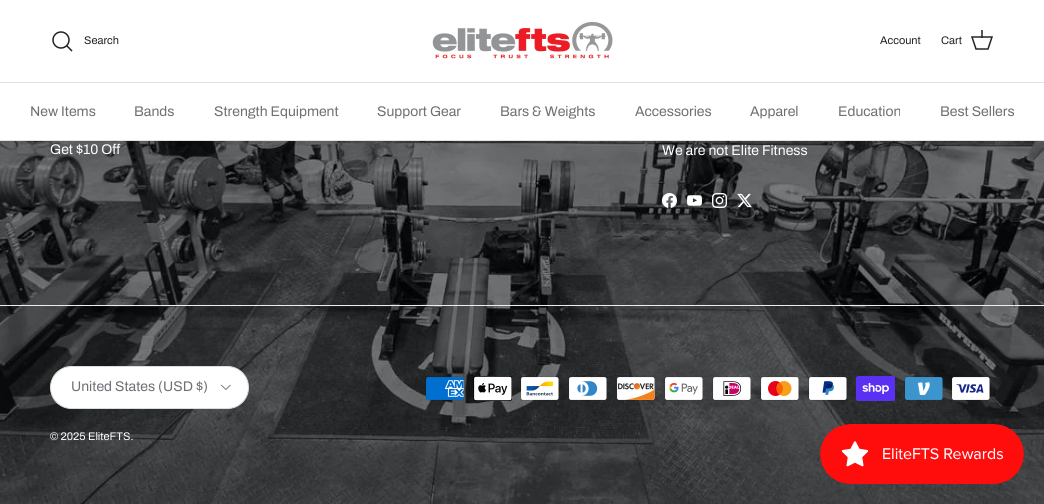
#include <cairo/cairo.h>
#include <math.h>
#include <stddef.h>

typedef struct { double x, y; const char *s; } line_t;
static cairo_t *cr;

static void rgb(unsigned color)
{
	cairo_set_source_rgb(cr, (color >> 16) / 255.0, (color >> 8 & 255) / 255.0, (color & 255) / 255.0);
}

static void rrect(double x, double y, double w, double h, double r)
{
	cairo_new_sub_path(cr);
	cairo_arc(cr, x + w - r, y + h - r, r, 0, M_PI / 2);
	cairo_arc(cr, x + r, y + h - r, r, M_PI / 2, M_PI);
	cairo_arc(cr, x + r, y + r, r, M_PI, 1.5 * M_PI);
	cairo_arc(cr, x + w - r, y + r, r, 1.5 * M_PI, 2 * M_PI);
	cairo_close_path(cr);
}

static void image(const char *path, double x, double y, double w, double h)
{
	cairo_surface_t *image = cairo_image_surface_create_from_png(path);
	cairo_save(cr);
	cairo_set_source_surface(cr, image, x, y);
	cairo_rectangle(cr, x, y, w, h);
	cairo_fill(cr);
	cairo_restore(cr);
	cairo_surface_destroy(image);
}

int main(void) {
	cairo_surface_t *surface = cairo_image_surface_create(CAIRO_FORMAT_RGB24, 1044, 504);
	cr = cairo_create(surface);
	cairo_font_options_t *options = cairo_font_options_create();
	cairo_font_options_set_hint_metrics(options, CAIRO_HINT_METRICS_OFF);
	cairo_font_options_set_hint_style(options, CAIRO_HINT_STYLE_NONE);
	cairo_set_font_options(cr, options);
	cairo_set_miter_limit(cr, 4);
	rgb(0xffffff);
	cairo_paint(cr);
	rgb(0xe2e2e2);
	cairo_rectangle(cr, 0, 82, 1044, 1);
	cairo_fill(cr);
	cairo_arc(cr, 61, 40, 8, 0, 2 * M_PI);
	rgb(0x202223);
	cairo_set_line_width(cr, 1.5);
	cairo_stroke(cr);
	cairo_new_path(cr);
	cairo_move_to(cr, 67, 46);
	cairo_line_to(cr, 71.5, 50.5);
	cairo_set_line_cap(cr, CAIRO_LINE_CAP_SQUARE);
	cairo_stroke(cr);
	image("img/1.png", 432, 21, 181, 38);
	cairo_new_path(cr);
	cairo_move_to(cr, 972, 37);
	cairo_line_to(cr, 992, 37);
	cairo_line_to(cr, 988, 49);
	cairo_line_to(cr, 976, 49);
	cairo_close_path(cr);
	cairo_set_line_cap(cr, CAIRO_LINE_CAP_BUTT);
	cairo_stroke(cr);
	cairo_set_source_rgba(cr, 0.125, 0.133, 0.137, 0.75);
	cairo_rectangle(cr, 981, 30, 2, 8);
	cairo_fill(cr);
	rgb(0xe2e2e2);
	cairo_rectangle(cr, 0, 140, 1044, 1);
	cairo_fill(cr);
	image("img/2.png", 0, 141, 1044, 363);
	image("img/3.png", 662, 193, 15, 15);
	image("img/4.png", 687, 195, 15, 11);
	image("img/5.png", 712, 193, 15, 15);
	image("img/6.png", 737, 193, 15, 15);
	rgb(0xeeeeee);
	cairo_rectangle(cr, 0, 305, 1044, 1);
	cairo_fill(cr);
	rgb(0xffffff);
	rrect(50.5, 366.5, 198, 42, 21);
	cairo_fill_preserve(cr);
	rgb(0xdbdcdd);
	cairo_set_line_width(cr, 1);
	cairo_stroke(cr);
	cairo_new_path(cr);
	cairo_move_to(cr, 230.5, 385);
	cairo_line_to(cr, 226, 389.5);
	cairo_line_to(cr, 221, 385);
	rgb(0x6d7175);
	cairo_set_line_width(cr, 0.9);
	cairo_stroke(cr);
	image("img/7.png", 425, 376, 39, 25);
	image("img/8.png", 473, 376, 39, 25);
	image("img/9.png", 520, 376, 39, 25);
	image("img/10.png", 569, 376, 38, 24);
	image("img/11.png", 617, 376, 38, 25);
	image("img/12.png", 664, 376, 39, 25);
	image("img/13.png", 712, 376, 39, 25);
	image("img/14.png", 760, 376, 39, 25);
	image("img/15.png", 808, 376, 39, 25);
	image("img/16.png", 856, 376, 39, 25);
	image("img/17.png", 904, 376, 39, 24);
	image("img/18.png", 951, 377, 39, 24);
	image("img/19.png", 820, 424, 204, 60);
	cairo_select_font_face(cr, "Archivo", CAIRO_FONT_SLANT_NORMAL, CAIRO_FONT_WEIGHT_NORMAL);
	cairo_set_font_size(cr, 11);
	rgb(0x202223);
	{
		static const line_t items[] = {
			{84, 44, "Search"},
			{880, 44, "Account"},
			{941, 44, "Cart"},
		};
		for (size_t i = 0; i < sizeof items / sizeof *items; i++) {
			cairo_move_to(cr, items[i].x, items[i].y);
			cairo_show_text(cr, items[i].s);
		}
	}
	cairo_set_font_size(cr, 14);
	rgb(0x6d7175);
	{
		static const line_t items[] = {
			{30, 116, "New Items"},
			{134, 116, "Bands"},
			{214, 116, "Strength Equipment"},
			{377, 116, "Support Gear"},
			{500, 116, "Bars & Weights"},
			{635, 116, "Accessories"},
			{750, 116, "Apparel"},
			{838, 116, "Education"},
			{940, 116, "Best Sellers"},
		};
		for (size_t i = 0; i < sizeof items / sizeof *items; i++) {
			cairo_move_to(cr, items[i].x, items[i].y);
			cairo_show_text(cr, items[i].s);
		}
	}
	rgb(0xffffff);
	cairo_move_to(cr, 50, 154);
	cairo_show_text(cr, "Get $10 Off");
	cairo_move_to(cr, 662, 155);
	cairo_show_text(cr, "We are not Elite Fitness");
	rgb(0x6d7175);
	cairo_move_to(cr, 71, 391);
	cairo_show_text(cr, "United States (USD $)");
	cairo_set_font_size(cr, 11);
	rgb(0xffffff);
	cairo_move_to(cr, 50, 440);
	cairo_show_text(cr, "© 2025 EliteFTS.");
	cairo_surface_write_to_png(surface, "page.png");
	cairo_font_options_destroy(options);
	cairo_destroy(cr);
	cairo_surface_destroy(surface);
	return 0;
}
